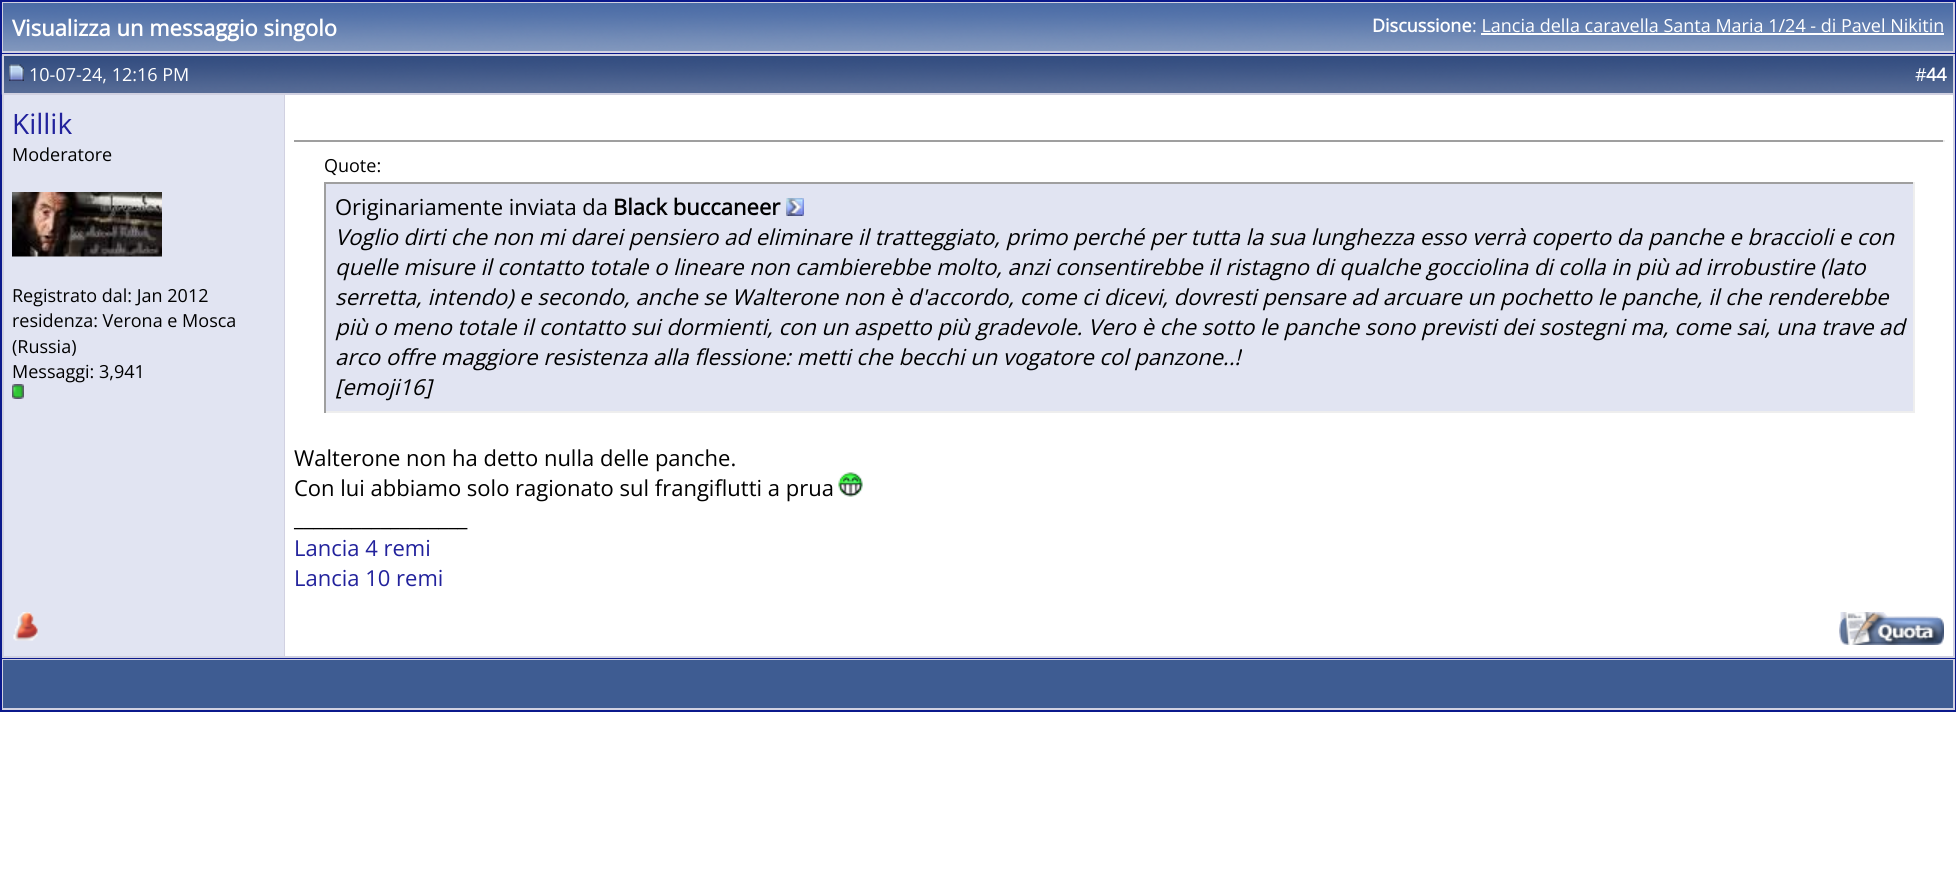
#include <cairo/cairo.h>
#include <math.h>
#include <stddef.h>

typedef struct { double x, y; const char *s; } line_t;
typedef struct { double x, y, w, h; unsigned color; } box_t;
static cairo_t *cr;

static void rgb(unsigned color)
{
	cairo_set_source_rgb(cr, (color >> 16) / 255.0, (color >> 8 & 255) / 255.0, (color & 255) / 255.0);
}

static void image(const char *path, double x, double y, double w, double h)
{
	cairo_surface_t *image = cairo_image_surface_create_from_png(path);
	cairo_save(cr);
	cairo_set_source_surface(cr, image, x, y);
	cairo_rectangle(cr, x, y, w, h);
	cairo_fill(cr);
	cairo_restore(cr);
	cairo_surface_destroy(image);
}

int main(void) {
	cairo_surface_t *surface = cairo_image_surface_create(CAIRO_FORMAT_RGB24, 1956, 886);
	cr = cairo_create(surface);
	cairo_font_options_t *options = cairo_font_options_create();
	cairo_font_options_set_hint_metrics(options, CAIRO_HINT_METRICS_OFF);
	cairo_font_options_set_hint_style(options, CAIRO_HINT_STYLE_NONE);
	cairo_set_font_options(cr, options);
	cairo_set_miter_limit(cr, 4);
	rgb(0xffffff);
	cairo_paint(cr);
	{
		static const box_t items[] = {
			{2, 2, 1953, 51, 0xd1d1e1},
			{0, 0, 1956, 2, 0x0b198c},
			{1955, 0, 1, 53, 0x0b198c},
			{0, 0, 2, 53, 0x0b198c},
		};
		for (size_t i = 0; i < sizeof items / sizeof *items; i++) {
			rgb(items[i].color);
			cairo_rectangle(cr, items[i].x, items[i].y, items[i].w, items[i].h);
			cairo_fill(cr);
		}
	}
	image("img/1.png", 3, 3, 1950, 48);
	rgb(0xffffff);
	cairo_rectangle(cr, 1481, 33, 463, 2);
	cairo_fill(cr);
	cairo_rectangle(cr, 1, 54, 1954, 604);
	rgb(0x0b198c);
	cairo_stroke(cr);
	image("img/2.png", 1, 55, 284, 40);
	{
		static const box_t items[] = {
			{2, 54, 1953, 2, 0xd1d1e1},
			{2, 93, 283, 2, 0xd1d1e1},
			{2, 54, 2, 548, 0xd1d1e1},
		};
		for (size_t i = 0; i < sizeof items / sizeof *items; i++) {
			rgb(items[i].color);
			cairo_rectangle(cr, items[i].x, items[i].y, items[i].w, items[i].h);
			cairo_fill(cr);
		}
	}
	image("img/3.png", 9, 64, 15, 17);
	image("img/4.png", 285, 56, 1668, 37);
	{
		static const box_t items[] = {
			{1953, 54, 2, 603, 0xd1d1e1},
			{285, 93, 1670, 2, 0xd1d1e1},
			{4, 95, 280, 561, 0xe1e4f2},
			{284, 95, 1, 562, 0xd1d1e1},
		};
		for (size_t i = 0; i < sizeof items / sizeof *items; i++) {
			rgb(items[i].color);
			cairo_rectangle(cr, items[i].x, items[i].y, items[i].w, items[i].h);
			cairo_fill(cr);
		}
	}
	image("img/5.png", 12, 192, 150, 65);
	image("img/6.png", 12, 384, 12, 15);
	{
		static const box_t items[] = {
			{294, 140, 1650, 2, 0x9f9f9f},
			{1943, 140, 2, 2, 0xeeeeee},
			{326, 184, 1587, 227, 0xe1e4f2},
			{324, 182, 1590, 2, 0x9f9f9f},
			{1913, 182, 2, 231, 0xeeeeee},
			{324, 411, 1590, 2, 0xeeeeee},
			{324, 182, 2, 231, 0x9f9f9f},
		};
		for (size_t i = 0; i < sizeof items / sizeof *items; i++) {
			rgb(items[i].color);
			cairo_rectangle(cr, items[i].x, items[i].y, items[i].w, items[i].h);
			cairo_fill(cr);
		}
	}
	image("img/7.png", 786, 198, 18, 18);
	image("img/8.png", 838, 472, 25, 25);
	rgb(0xd1d1e1);
	cairo_rectangle(cr, 2, 656, 1953, 2);
	cairo_fill(cr);
	cairo_rectangle(cr, 2, 602, 2, 55);
	cairo_fill(cr);
	image("img/9.png", 13, 612, 25, 29);
	image("img/10.png", 1839, 612, 105, 33);
	{
		static const box_t items[] = {
			{2, 659, 1953, 51, 0xd1d1e1},
			{1955, 659, 1, 52, 0x0b198c},
			{0, 710, 1956, 2, 0x0b198c},
			{0, 659, 2, 52, 0x0b198c},
			{3, 660, 1950, 48, 0x3e5c92},
		};
		for (size_t i = 0; i < sizeof items / sizeof *items; i++) {
			rgb(items[i].color);
			cairo_rectangle(cr, items[i].x, items[i].y, items[i].w, items[i].h);
			cairo_fill(cr);
		}
	}
	cairo_select_font_face(cr, "Open Sans", CAIRO_FONT_SLANT_NORMAL, CAIRO_FONT_WEIGHT_BOLD);
	cairo_set_font_size(cr, 22);
	rgb(0xffffff);
	cairo_move_to(cr, 12, 36);
	cairo_show_text(cr, "Visualizza un messaggio singolo");
	cairo_set_font_size(cr, 18);
	cairo_move_to(cr, 1372, 32);
	cairo_show_text(cr, "Discussione");
	cairo_select_font_face(cr, "Open Sans", CAIRO_FONT_SLANT_NORMAL, CAIRO_FONT_WEIGHT_NORMAL);
	{
		static const line_t items[] = {
			{1472, 32, ": Lancia della caravella Santa Maria 1/24 - di Pavel Nikitin"},
			{29, 81, "10-07-24, 12:16 PM"},
			{1915, 81, "#"},
		};
		for (size_t i = 0; i < sizeof items / sizeof *items; i++) {
			cairo_move_to(cr, items[i].x, items[i].y);
			cairo_show_text(cr, items[i].s);
		}
	}
	cairo_select_font_face(cr, "Open Sans", CAIRO_FONT_SLANT_NORMAL, CAIRO_FONT_WEIGHT_BOLD);
	cairo_move_to(cr, 1926, 81);
	cairo_show_text(cr, "44");
	cairo_select_font_face(cr, "Open Sans", CAIRO_FONT_SLANT_NORMAL, CAIRO_FONT_WEIGHT_NORMAL);
	cairo_set_font_size(cr, 28);
	rgb(0x22229c);
	cairo_move_to(cr, 12, 134);
	cairo_show_text(cr, "Killik");
	cairo_set_font_size(cr, 18);
	rgb(0x000000);
	{
		static const line_t items[] = {
			{12, 161, "Moderatore"},
			{12, 302, "Registrato dal: Jan 2012"},
			{12, 327, "residenza: Verona e Mosca"},
			{12, 353, "(Russia)"},
			{12, 378, "Messaggi: 3,941"},
			{324, 172, "Quote:"},
		};
		for (size_t i = 0; i < sizeof items / sizeof *items; i++) {
			cairo_move_to(cr, items[i].x, items[i].y);
			cairo_show_text(cr, items[i].s);
		}
	}
	cairo_set_font_size(cr, 22);
	cairo_move_to(cr, 335, 215);
	cairo_show_text(cr, "Originariamente inviata da");
	cairo_select_font_face(cr, "Open Sans", CAIRO_FONT_SLANT_NORMAL, CAIRO_FONT_WEIGHT_BOLD);
	cairo_move_to(cr, 613, 215);
	cairo_show_text(cr, "Black buccaneer");
	cairo_select_font_face(cr, "Open Sans", CAIRO_FONT_SLANT_ITALIC, CAIRO_FONT_WEIGHT_NORMAL);
	{
		static const line_t items[] = {
			{335, 245, "Voglio dirti che non mi darei pensiero ad eliminare il tratteggiato, primo perché per tutta la sua lunghezza esso verrà coperto da panche e braccioli e con"},
			{335, 275, "quelle misure il contatto totale o lineare non cambierebbe molto, anzi consentirebbe il ristagno di qualche gocciolina di colla in più ad irrobustire (lato"},
			{335, 305, "serretta, intendo) e secondo, anche se Walterone non è d'accordo, come ci dicevi, dovresti pensare ad arcuare un pochetto le panche, il che renderebbe"},
			{335, 335, "più o meno totale il contatto sui dormienti, con un aspetto più gradevole. Vero è che sotto le panche sono previsti dei sostegni ma, come sai, una trave ad"},
			{335, 365, "arco offre maggiore resistenza alla flessione: metti che becchi un vogatore col panzone..!"},
			{335, 395, "[emoji16]"},
		};
		for (size_t i = 0; i < sizeof items / sizeof *items; i++) {
			cairo_move_to(cr, items[i].x, items[i].y);
			cairo_show_text(cr, items[i].s);
		}
	}
	cairo_select_font_face(cr, "Open Sans", CAIRO_FONT_SLANT_NORMAL, CAIRO_FONT_WEIGHT_NORMAL);
	{
		static const line_t items[] = {
			{294, 466, "Walterone non ha detto nulla delle panche."},
			{294, 496, "Con lui abbiamo solo ragionato sul frangiflutti a prua"},
			{294, 526, "__________________"},
		};
		for (size_t i = 0; i < sizeof items / sizeof *items; i++) {
			cairo_move_to(cr, items[i].x, items[i].y);
			cairo_show_text(cr, items[i].s);
		}
	}
	rgb(0x22229c);
	cairo_move_to(cr, 294, 556);
	cairo_show_text(cr, "Lancia 4 remi");
	cairo_move_to(cr, 294, 586);
	cairo_show_text(cr, "Lancia 10 remi");
	cairo_surface_write_to_png(surface, "page.png");
	cairo_font_options_destroy(options);
	cairo_destroy(cr);
	cairo_surface_destroy(surface);
	return 0;
}
